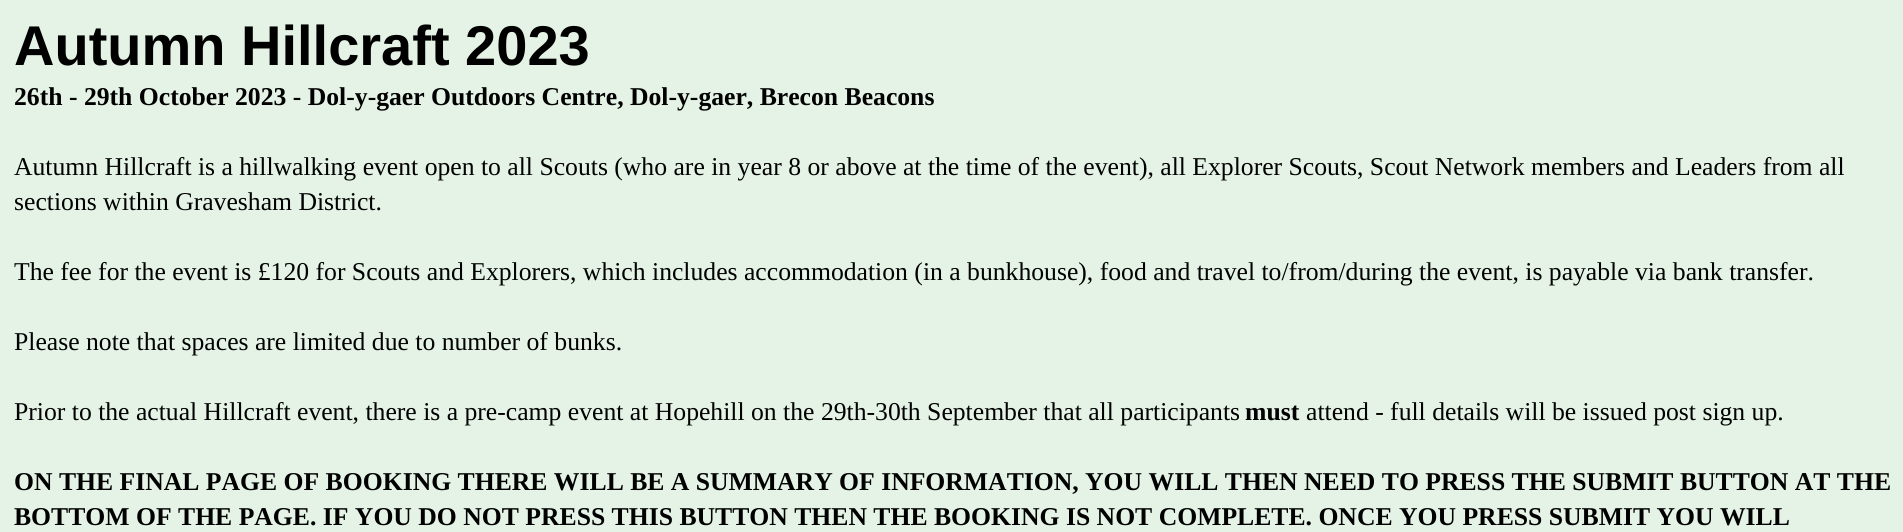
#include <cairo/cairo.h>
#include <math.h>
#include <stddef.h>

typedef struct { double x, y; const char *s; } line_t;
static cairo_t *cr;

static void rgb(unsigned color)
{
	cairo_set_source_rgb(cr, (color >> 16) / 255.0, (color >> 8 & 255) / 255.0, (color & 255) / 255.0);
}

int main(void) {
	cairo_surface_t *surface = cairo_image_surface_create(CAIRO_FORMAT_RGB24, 1903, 532);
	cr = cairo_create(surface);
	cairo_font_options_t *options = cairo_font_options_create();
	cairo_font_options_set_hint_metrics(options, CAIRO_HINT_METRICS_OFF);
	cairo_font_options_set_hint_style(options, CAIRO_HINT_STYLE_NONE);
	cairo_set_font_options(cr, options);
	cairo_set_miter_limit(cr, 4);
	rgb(0xe4f3e5);
	cairo_paint(cr);
	cairo_select_font_face(cr, "Liberation Sans", CAIRO_FONT_SLANT_NORMAL, CAIRO_FONT_WEIGHT_BOLD);
	cairo_set_font_size(cr, 56);
	rgb(0x000000);
	cairo_move_to(cr, 14, 65);
	cairo_show_text(cr, "Autumn Hillcraft 2023");
	cairo_select_font_face(cr, "Liberation Serif", CAIRO_FONT_SLANT_NORMAL, CAIRO_FONT_WEIGHT_BOLD);
	cairo_set_font_size(cr, 25.67);
	cairo_move_to(cr, 14, 105);
	cairo_show_text(cr, "26th - 29th October 2023 - Dol-y-gaer Outdoors Centre, Dol-y-gaer, Brecon Beacons");
	cairo_select_font_face(cr, "Liberation Serif", CAIRO_FONT_SLANT_NORMAL, CAIRO_FONT_WEIGHT_NORMAL);
	{
		static const line_t items[] = {
			{14, 175, "Autumn Hillcraft is a hillwalking event open to all Scouts (who are in year 8 or above at the time of the event), all Explorer Scouts, Scout Network members and Leaders from all"},
			{14, 210, "sections within Gravesham District."},
			{14, 280, "The fee for the event is £120 for Scouts and Explorers, which includes accommodation (in a bunkhouse), food and travel to/from/during the event, is payable via bank transfer."},
			{14, 350, "Please note that spaces are limited due to number of bunks."},
			{14, 420, "Prior to the actual Hillcraft event, there is a pre-camp event at Hopehill on the 29th-30th September that all participants"},
		};
		for (size_t i = 0; i < sizeof items / sizeof *items; i++) {
			cairo_move_to(cr, items[i].x, items[i].y);
			cairo_show_text(cr, items[i].s);
		}
	}
	cairo_select_font_face(cr, "Liberation Serif", CAIRO_FONT_SLANT_NORMAL, CAIRO_FONT_WEIGHT_BOLD);
	cairo_move_to(cr, 1245, 420);
	cairo_show_text(cr, "must");
	cairo_select_font_face(cr, "Liberation Serif", CAIRO_FONT_SLANT_NORMAL, CAIRO_FONT_WEIGHT_NORMAL);
	cairo_move_to(cr, 1306, 420);
	cairo_show_text(cr, "attend - full details will be issued post sign up.");
	cairo_select_font_face(cr, "Liberation Serif", CAIRO_FONT_SLANT_NORMAL, CAIRO_FONT_WEIGHT_BOLD);
	cairo_move_to(cr, 14, 490);
	cairo_show_text(cr, "ON THE FINAL PAGE OF BOOKING THERE WILL BE A SUMMARY OF INFORMATION, YOU WILL THEN NEED TO PRESS THE SUBMIT BUTTON AT THE");
	cairo_move_to(cr, 14, 525);
	cairo_show_text(cr, "BOTTOM OF THE PAGE. IF YOU DO NOT PRESS THIS BUTTON THEN THE BOOKING IS NOT COMPLETE. ONCE YOU PRESS SUBMIT YOU WILL");
	cairo_surface_write_to_png(surface, "page.png");
	cairo_font_options_destroy(options);
	cairo_destroy(cr);
	cairo_surface_destroy(surface);
	return 0;
}
